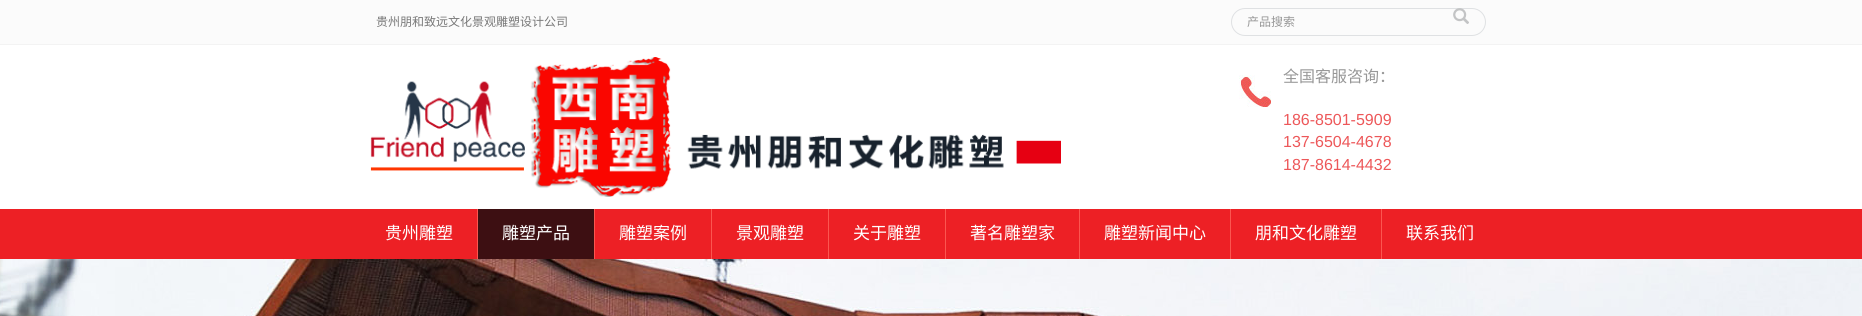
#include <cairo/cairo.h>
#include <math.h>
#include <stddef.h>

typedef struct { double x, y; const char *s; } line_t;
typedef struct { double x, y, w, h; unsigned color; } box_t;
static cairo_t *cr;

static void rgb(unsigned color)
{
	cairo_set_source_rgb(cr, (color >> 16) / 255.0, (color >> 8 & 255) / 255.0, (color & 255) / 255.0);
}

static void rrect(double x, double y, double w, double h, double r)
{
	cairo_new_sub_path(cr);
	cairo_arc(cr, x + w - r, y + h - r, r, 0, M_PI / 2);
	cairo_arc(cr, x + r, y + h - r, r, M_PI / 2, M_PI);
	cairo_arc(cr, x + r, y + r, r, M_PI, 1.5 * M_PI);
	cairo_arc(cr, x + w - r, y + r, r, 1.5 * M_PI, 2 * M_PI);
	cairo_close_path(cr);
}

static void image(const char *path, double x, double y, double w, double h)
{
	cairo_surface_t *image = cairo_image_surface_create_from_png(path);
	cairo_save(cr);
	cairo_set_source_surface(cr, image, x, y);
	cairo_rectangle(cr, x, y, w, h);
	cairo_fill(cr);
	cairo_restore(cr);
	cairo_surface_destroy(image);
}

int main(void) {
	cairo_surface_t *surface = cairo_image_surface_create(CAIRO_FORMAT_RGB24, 1862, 316);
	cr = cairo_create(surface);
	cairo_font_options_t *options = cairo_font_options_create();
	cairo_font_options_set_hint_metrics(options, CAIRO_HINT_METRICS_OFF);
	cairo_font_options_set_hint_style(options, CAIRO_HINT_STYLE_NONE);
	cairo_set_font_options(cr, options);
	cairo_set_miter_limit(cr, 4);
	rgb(0xffffff);
	cairo_paint(cr);
	rgb(0xfbfbfb);
	cairo_rectangle(cr, 0, 0, 1862, 44);
	cairo_fill(cr);
	rgb(0xf3f3f3);
	cairo_rectangle(cr, 0, 44, 1862, 1);
	cairo_fill(cr);
	rrect(1231.5, 8.5, 254, 27, 13.5);
	rgb(0xdfe1e3);
	cairo_set_line_width(cr, 1);
	cairo_stroke(cr);
	image("img/1.png", 1453, 8, 16, 16);
	image("img/2.png", 370, 57, 691, 140);
	image("img/3.png", 1239, 75, 32, 32);
	{
		static const box_t items[] = {
			{0, 209, 1862, 50, 0xed2025},
			{477, 209, 1, 50, 0xfb5650},
			{594, 209, 1, 50, 0xfb5650},
			{478, 209, 116, 50, 0x3d0f12},
			{711, 209, 1, 50, 0xfb5650},
			{828, 209, 1, 50, 0xfb5650},
			{945, 209, 1, 50, 0xfb5650},
			{1079, 209, 1, 50, 0xfb5650},
			{1230, 209, 1, 50, 0xfb5650},
			{1381, 209, 1, 50, 0xfb5650},
		};
		for (size_t i = 0; i < sizeof items / sizeof *items; i++) {
			rgb(items[i].color);
			cairo_rectangle(cr, items[i].x, items[i].y, items[i].w, items[i].h);
			cairo_fill(cr);
		}
	}
	image("img/4.png", 0, 259, 1862, 57);
	cairo_select_font_face(cr, "Noto Sans CJK SC", CAIRO_FONT_SLANT_NORMAL, CAIRO_FONT_WEIGHT_NORMAL);
	cairo_set_font_size(cr, 12);
	rgb(0x777777);
	cairo_move_to(cr, 376, 26);
	cairo_show_text(cr, "贵州朋和致远文化景观雕塑设计公司");
	rgb(0x979797);
	cairo_move_to(cr, 1247, 26);
	cairo_show_text(cr, "产品搜索");
	cairo_set_font_size(cr, 16);
	cairo_move_to(cr, 1283, 82);
	cairo_show_text(cr, "全国客服咨询：");
	cairo_select_font_face(cr, "Liberation Sans", CAIRO_FONT_SLANT_NORMAL, CAIRO_FONT_WEIGHT_NORMAL);
	rgb(0xed5759);
	{
		static const line_t items[] = {
			{1283, 125, "186-8501-5909"},
			{1283, 147, "137-6504-4678"},
			{1283, 170, "187-8614-4432"},
		};
		for (size_t i = 0; i < sizeof items / sizeof *items; i++) {
			cairo_move_to(cr, items[i].x, items[i].y);
			cairo_show_text(cr, items[i].s);
		}
	}
	cairo_select_font_face(cr, "Noto Sans CJK SC", CAIRO_FONT_SLANT_NORMAL, CAIRO_FONT_WEIGHT_NORMAL);
	cairo_set_font_size(cr, 17);
	rgb(0xffffff);
	{
		static const line_t items[] = {
			{385, 239, "贵州雕塑"},
			{502, 239, "雕塑产品"},
			{619, 239, "雕塑案例"},
			{736, 239, "景观雕塑"},
			{853, 239, "关于雕塑"},
			{970, 239, "著名雕塑家"},
			{1104, 239, "雕塑新闻中心"},
			{1255, 239, "朋和文化雕塑"},
			{1406, 239, "联系我们"},
		};
		for (size_t i = 0; i < sizeof items / sizeof *items; i++) {
			cairo_move_to(cr, items[i].x, items[i].y);
			cairo_show_text(cr, items[i].s);
		}
	}
	cairo_surface_write_to_png(surface, "page.png");
	cairo_font_options_destroy(options);
	cairo_destroy(cr);
	cairo_surface_destroy(surface);
	return 0;
}
